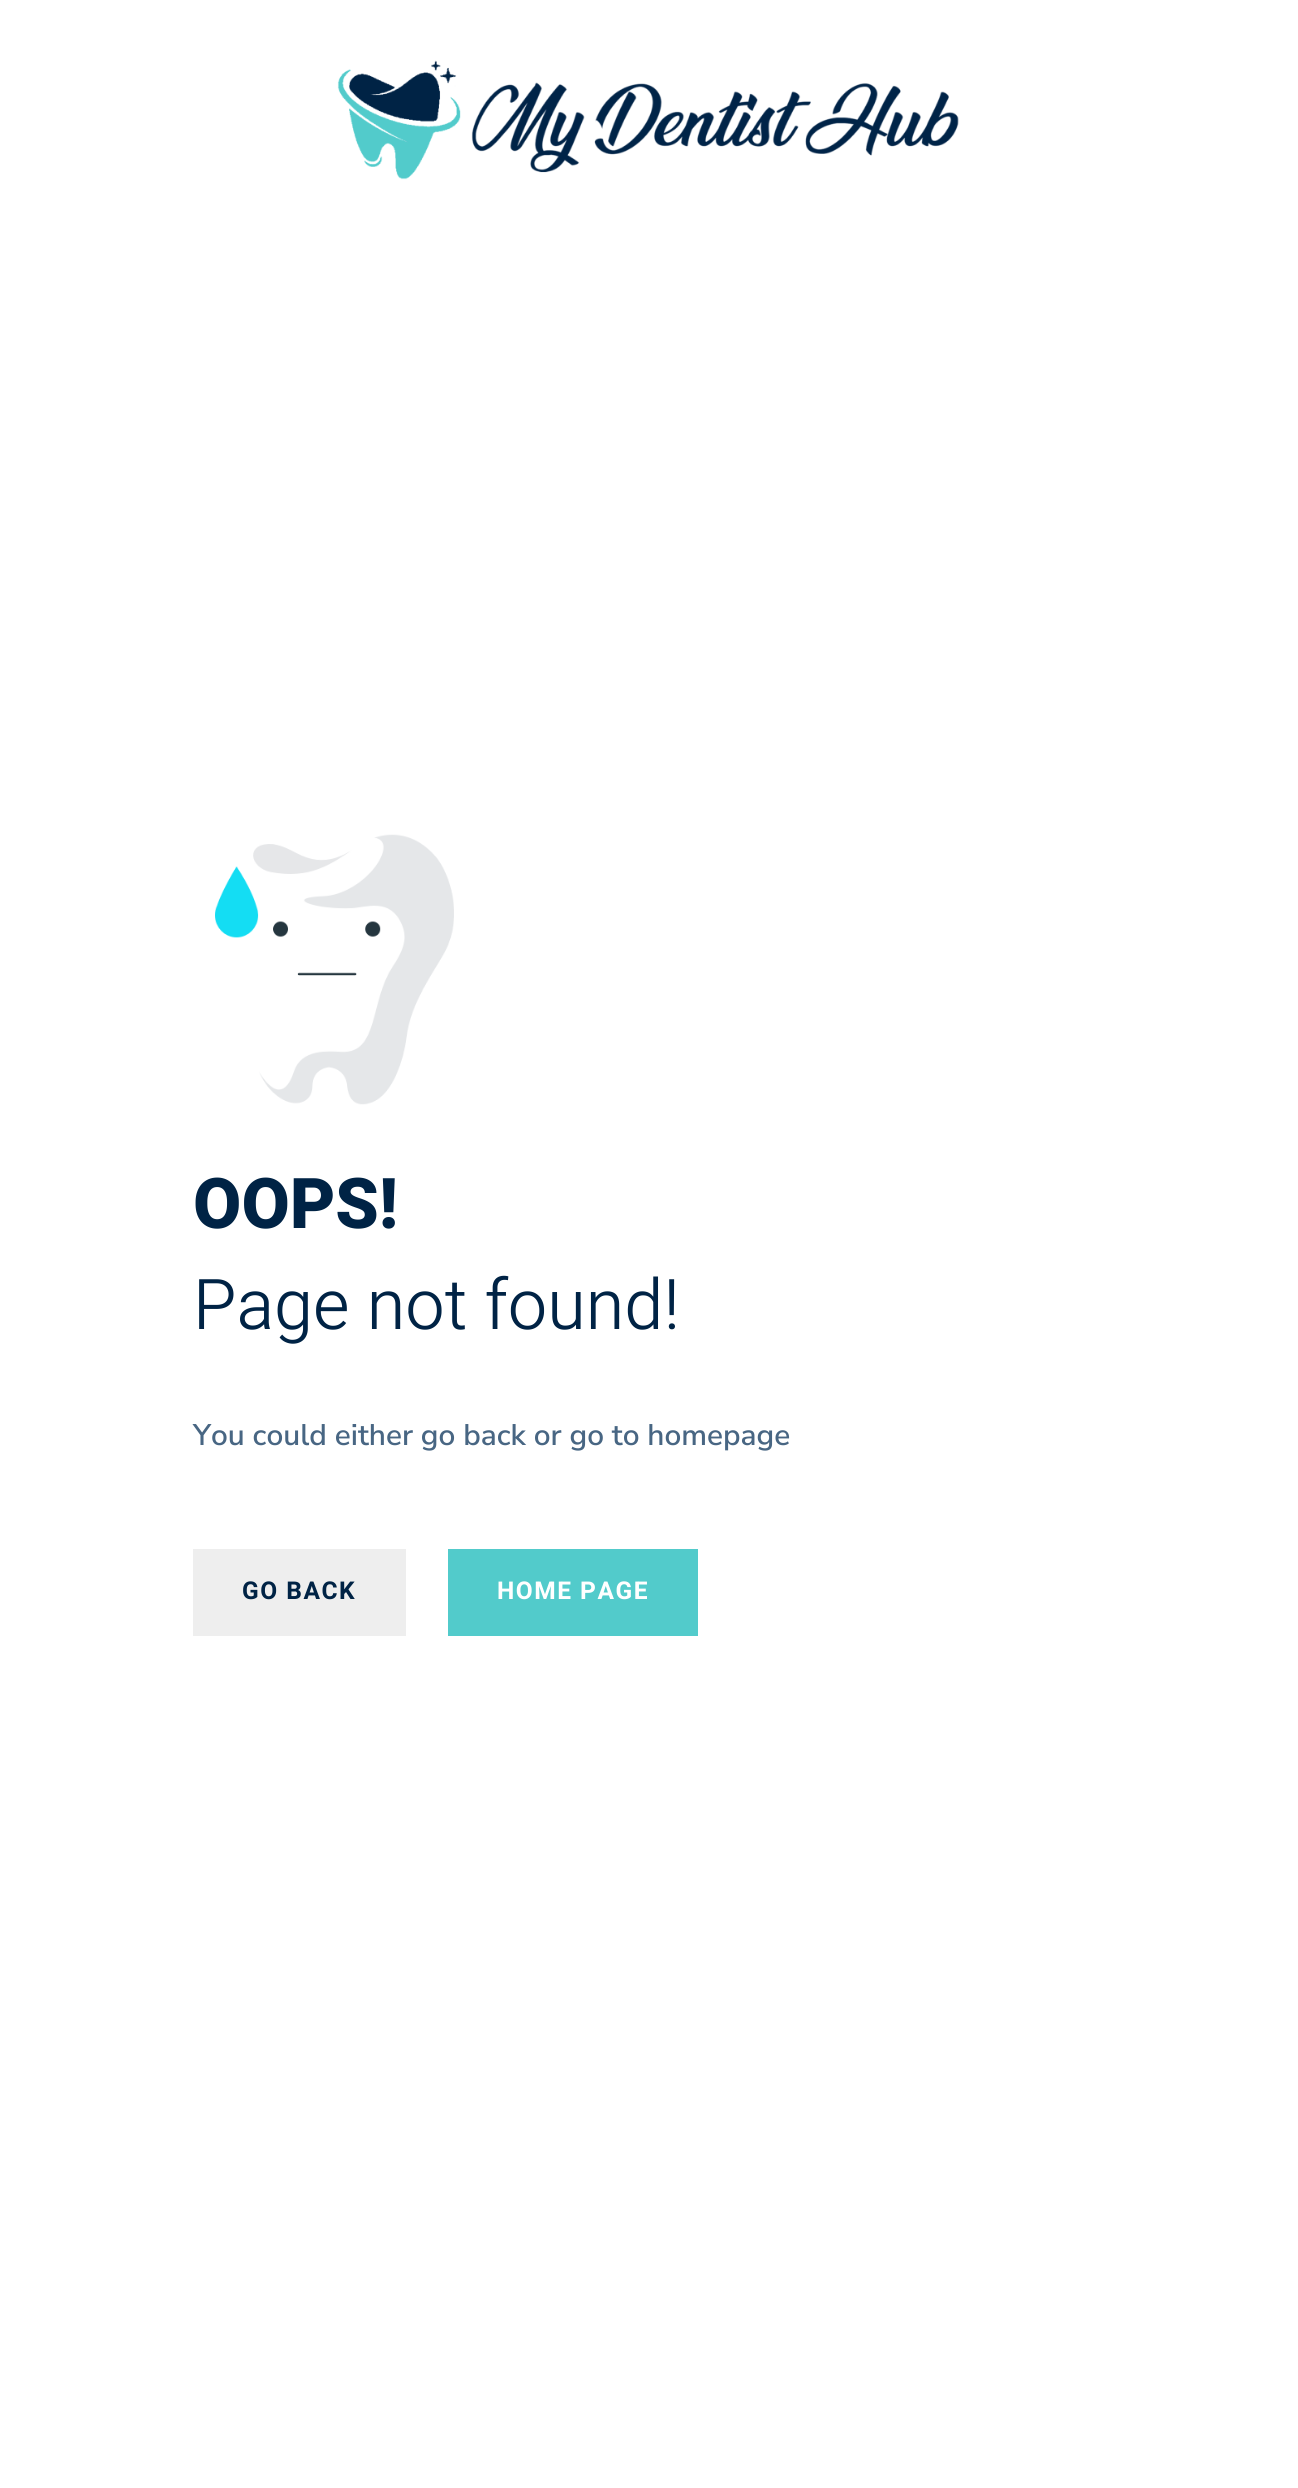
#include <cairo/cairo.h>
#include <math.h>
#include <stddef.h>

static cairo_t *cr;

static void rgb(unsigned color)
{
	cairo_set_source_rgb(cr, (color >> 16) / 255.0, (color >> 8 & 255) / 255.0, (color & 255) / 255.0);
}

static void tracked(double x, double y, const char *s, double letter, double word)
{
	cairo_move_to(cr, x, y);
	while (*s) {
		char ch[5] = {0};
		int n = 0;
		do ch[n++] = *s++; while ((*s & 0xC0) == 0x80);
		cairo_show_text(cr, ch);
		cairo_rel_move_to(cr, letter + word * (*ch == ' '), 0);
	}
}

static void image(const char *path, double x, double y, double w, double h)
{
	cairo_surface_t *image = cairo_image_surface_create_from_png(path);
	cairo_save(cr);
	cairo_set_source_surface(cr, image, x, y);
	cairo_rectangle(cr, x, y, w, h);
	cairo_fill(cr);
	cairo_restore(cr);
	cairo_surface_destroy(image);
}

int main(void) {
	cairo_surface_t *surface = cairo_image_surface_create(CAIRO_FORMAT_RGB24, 1298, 2488);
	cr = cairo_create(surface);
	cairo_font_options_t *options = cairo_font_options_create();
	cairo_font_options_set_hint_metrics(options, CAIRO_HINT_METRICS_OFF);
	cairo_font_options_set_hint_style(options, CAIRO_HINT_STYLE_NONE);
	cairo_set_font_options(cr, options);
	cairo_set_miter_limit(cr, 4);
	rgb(0xffffff);
	cairo_paint(cr);
	image("img/1.png", 337, 60, 622, 120);
	image("img/2.png", 215, 834, 239, 271);
	rgb(0xeeeeee);
	cairo_rectangle(cr, 193, 1549, 213, 87);
	cairo_fill(cr);
	rgb(0x52cbcb);
	cairo_rectangle(cr, 448, 1549, 250, 87);
	cairo_fill(cr);
	cairo_select_font_face(cr, "Heebo ExtraBold", CAIRO_FONT_SLANT_NORMAL, CAIRO_FONT_WEIGHT_NORMAL);
	cairo_set_font_size(cr, 70);
	rgb(0x002345);
	cairo_move_to(cr, 193, 1228);
	cairo_show_text(cr, "OOPS!");
	cairo_select_font_face(cr, "Heebo Light", CAIRO_FONT_SLANT_NORMAL, CAIRO_FONT_WEIGHT_NORMAL);
	cairo_move_to(cr, 193, 1329);
	cairo_show_text(cr, "Page not found!");
	cairo_select_font_face(cr, "Nunito Sans SemiBold", CAIRO_FONT_SLANT_NORMAL, CAIRO_FONT_WEIGHT_NORMAL);
	cairo_set_font_size(cr, 29.75);
	rgb(0x486683);
	cairo_move_to(cr, 193, 1445);
	cairo_show_text(cr, "You could either go back or go to homepage");
	cairo_select_font_face(cr, "Heebo", CAIRO_FONT_SLANT_NORMAL, CAIRO_FONT_WEIGHT_BOLD);
	cairo_set_font_size(cr, 24.5);
	rgb(0x002345);
	tracked(242, 1599, "GO BACK", 1.5, 0);
	rgb(0xffffff);
	tracked(497, 1599, "HOME PAGE", 1.5, 0);
	cairo_surface_write_to_png(surface, "page.png");
	cairo_font_options_destroy(options);
	cairo_destroy(cr);
	cairo_surface_destroy(surface);
	return 0;
}
